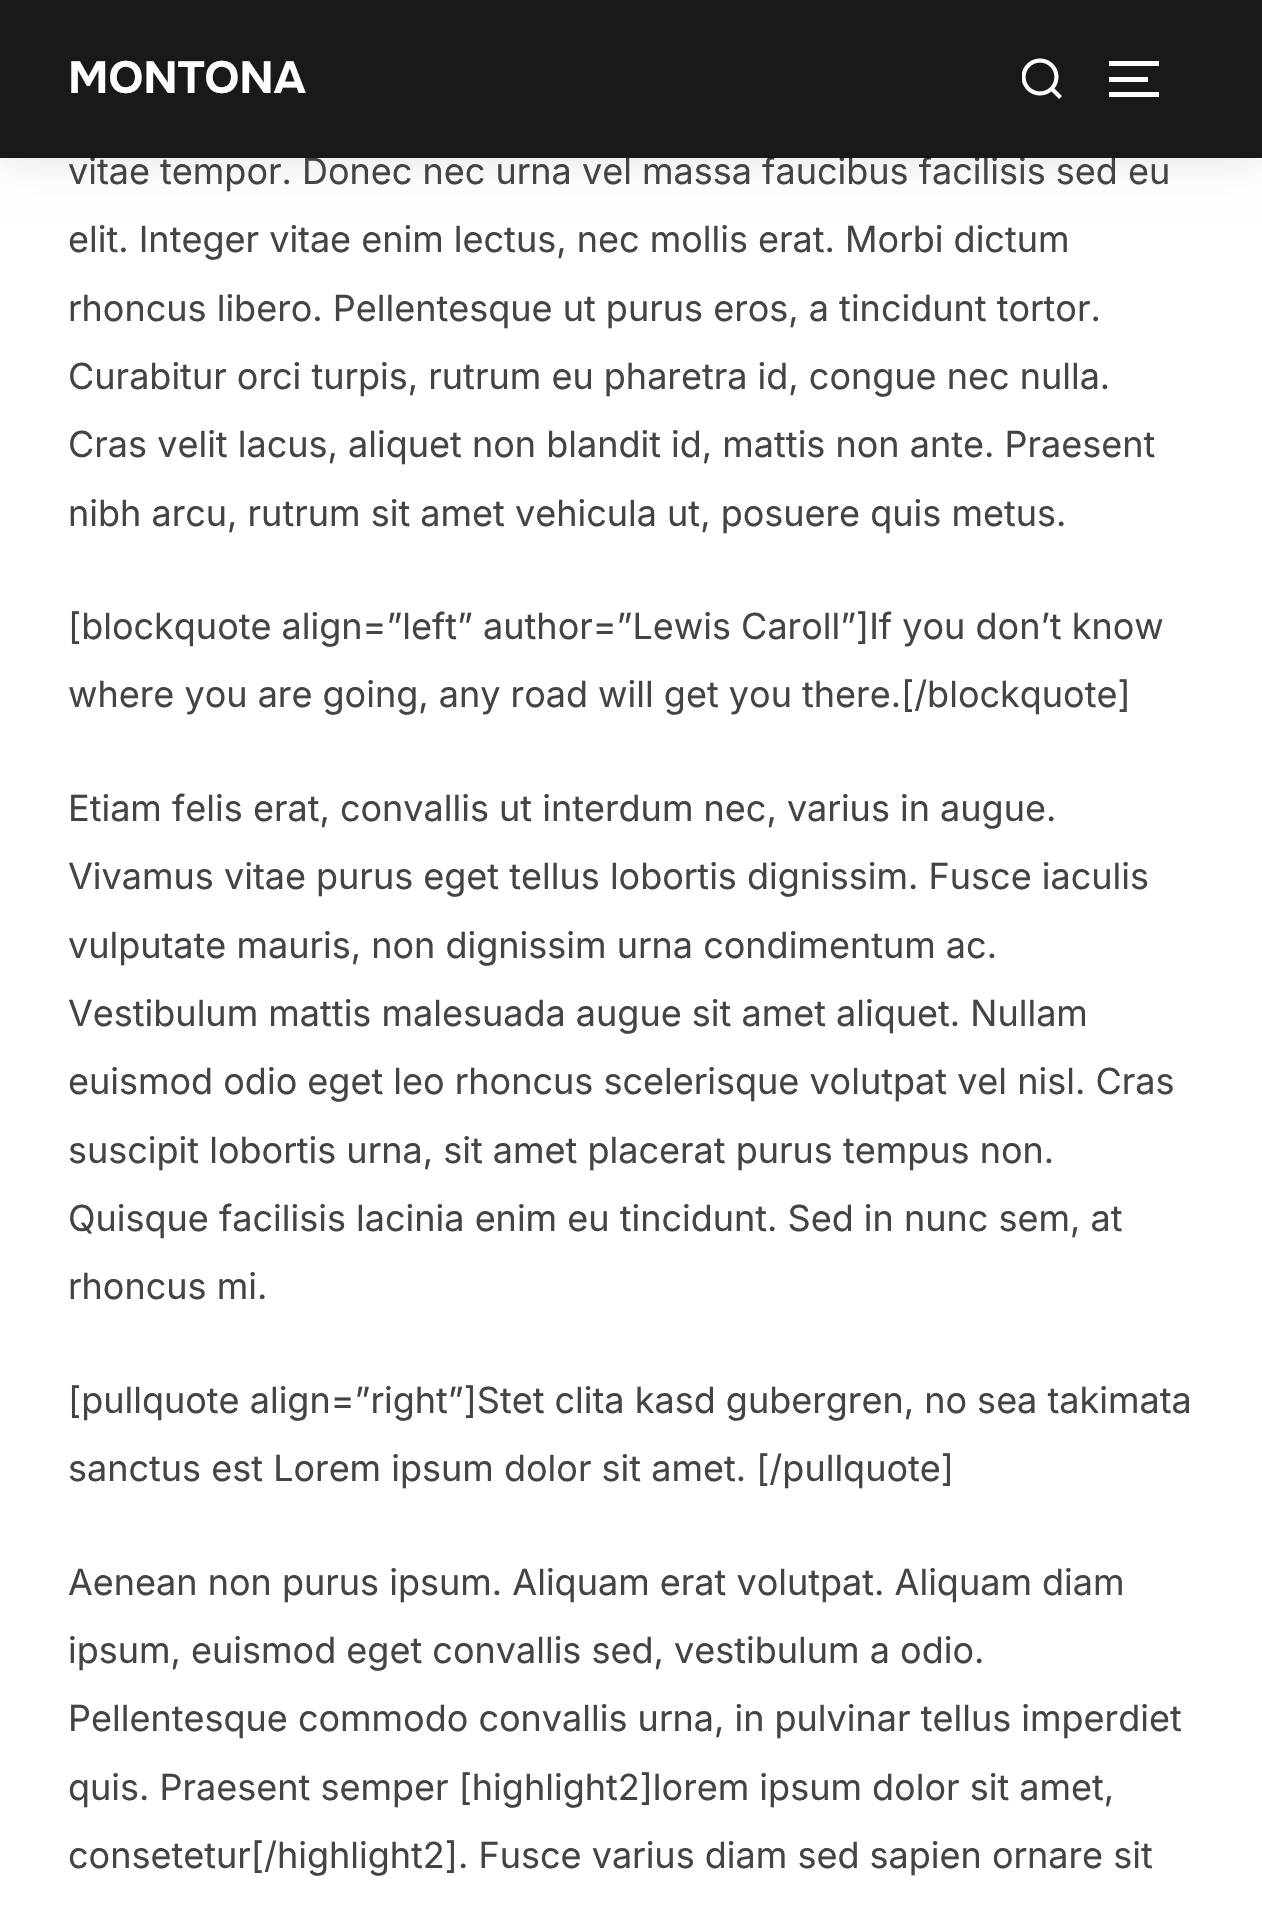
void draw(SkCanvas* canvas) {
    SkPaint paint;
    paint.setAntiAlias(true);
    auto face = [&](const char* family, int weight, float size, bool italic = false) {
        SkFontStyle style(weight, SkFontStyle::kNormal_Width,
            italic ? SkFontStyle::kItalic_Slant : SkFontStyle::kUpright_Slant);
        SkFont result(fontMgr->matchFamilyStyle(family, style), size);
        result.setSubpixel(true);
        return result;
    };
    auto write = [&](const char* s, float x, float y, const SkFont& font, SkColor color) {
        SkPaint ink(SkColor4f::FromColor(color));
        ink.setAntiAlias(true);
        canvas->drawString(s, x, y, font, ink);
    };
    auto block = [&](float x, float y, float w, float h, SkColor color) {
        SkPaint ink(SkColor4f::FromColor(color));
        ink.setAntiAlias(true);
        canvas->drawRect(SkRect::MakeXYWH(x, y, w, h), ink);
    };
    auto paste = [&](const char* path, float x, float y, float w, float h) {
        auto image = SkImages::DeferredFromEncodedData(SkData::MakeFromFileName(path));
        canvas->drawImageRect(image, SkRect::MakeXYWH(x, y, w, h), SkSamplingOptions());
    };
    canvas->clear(SK_ColorWHITE);
    canvas->save();
    canvas->clipPath(SkPathBuilder(SkPathFillType::kEvenOdd).moveTo(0, 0).lineTo(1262, 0).lineTo(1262, 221).lineTo(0, 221).close().moveTo(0, 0).lineTo(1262, 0).lineTo(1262, 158).lineTo(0, 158).close().detach(), true);
    paint.setColor(SkColorSetARGB(26, 0, 0, 0));
    paint.setMaskFilter(SkMaskFilter::MakeBlur(kNormal_SkBlurStyle, 20));
    canvas->drawRect(SkRect::MakeXYWH(-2, -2, 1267, 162), paint);
    paint.setMaskFilter(nullptr);
    canvas->restore();
    auto kFont1 = face("Inter", 400, 36);
    write("vitae tempor. Donec nec urna vel massa faucibus facilisis sed eu", 68, 184, kFont1, SkColorSetRGB(68, 68, 68));
    block(0, 0, 1262, 158, SkColorSetARGB(230, 0, 0, 0));
    auto kFont2 = face("Onest", 700, 45);
    write("MONTONA", 68, 93, kFont2, SK_ColorWHITE);
    paste("pic1.png", 1022, 58, 40, 41);
    block(1109, 61, 50, 5, SK_ColorWHITE);
    block(1109, 77, 39, 5, SK_ColorWHITE);
    block(1109, 92, 50, 5, SK_ColorWHITE);
    write("elit. Integer vitae enim lectus, nec mollis erat. Morbi dictum", 68, 252, kFont1, SkColorSetRGB(68, 68, 68));
    write("rhoncus libero. Pellentesque ut purus eros, a tincidunt tortor.", 68, 321, kFont1, SkColorSetRGB(68, 68, 68));
    write("Curabitur orci turpis, rutrum eu pharetra id, congue nec nulla.", 68, 389, kFont1, SkColorSetRGB(68, 68, 68));
    write("Cras velit lacus, aliquet non blandit id, mattis non ante. Praesent", 68, 457, kFont1, SkColorSetRGB(68, 68, 68));
    write("nibh arcu, rutrum sit amet vehicula ut, posuere quis metus.", 68, 526, kFont1, SkColorSetRGB(68, 68, 68));
    write("[blockquote align=”left” author=”Lewis Caroll”]If you don’t know", 68, 639, kFont1, SkColorSetRGB(68, 68, 68));
    write("where you are going, any road will get you there.[/blockquote]", 68, 707, kFont1, SkColorSetRGB(68, 68, 68));
    write("Etiam felis erat, convallis ut interdum nec, varius in augue.", 68, 821, kFont1, SkColorSetRGB(68, 68, 68));
    write("Vivamus vitae purus eget tellus lobortis dignissim. Fusce iaculis", 68, 889, kFont1, SkColorSetRGB(68, 68, 68));
    write("vulputate mauris, non dignissim urna condimentum ac.", 68, 958, kFont1, SkColorSetRGB(68, 68, 68));
    write("Vestibulum mattis malesuada augue sit amet aliquet. Nullam", 68, 1026, kFont1, SkColorSetRGB(68, 68, 68));
    write("euismod odio eget leo rhoncus scelerisque volutpat vel nisl. Cras", 68, 1094, kFont1, SkColorSetRGB(68, 68, 68));
    write("suscipit lobortis urna, sit amet placerat purus tempus non.", 68, 1163, kFont1, SkColorSetRGB(68, 68, 68));
    write("Quisque facilisis lacinia enim eu tincidunt. Sed in nunc sem, at", 68, 1231, kFont1, SkColorSetRGB(68, 68, 68));
    write("rhoncus mi.", 68, 1299, kFont1, SkColorSetRGB(68, 68, 68));
    write("[pullquote align=”right”]Stet clita kasd gubergren, no sea takimata", 68, 1413, kFont1, SkColorSetRGB(68, 68, 68));
    write("sanctus est Lorem ipsum dolor sit amet. [/pullquote]", 68, 1481, kFont1, SkColorSetRGB(68, 68, 68));
    write("Aenean non purus ipsum. Aliquam erat volutpat. Aliquam diam", 68, 1595, kFont1, SkColorSetRGB(68, 68, 68));
    write("ipsum, euismod eget convallis sed, vestibulum a odio.", 68, 1663, kFont1, SkColorSetRGB(68, 68, 68));
    write("Pellentesque commodo convallis urna, in pulvinar tellus imperdiet", 68, 1731, kFont1, SkColorSetRGB(68, 68, 68));
    write("quis. Praesent semper [highlight2]lorem ipsum dolor sit amet,", 68, 1800, kFont1, SkColorSetRGB(68, 68, 68));
    write("consetetur[/highlight2]. Fusce varius diam sed sapien ornare sit", 68, 1868, kFont1, SkColorSetRGB(68, 68, 68));
}
